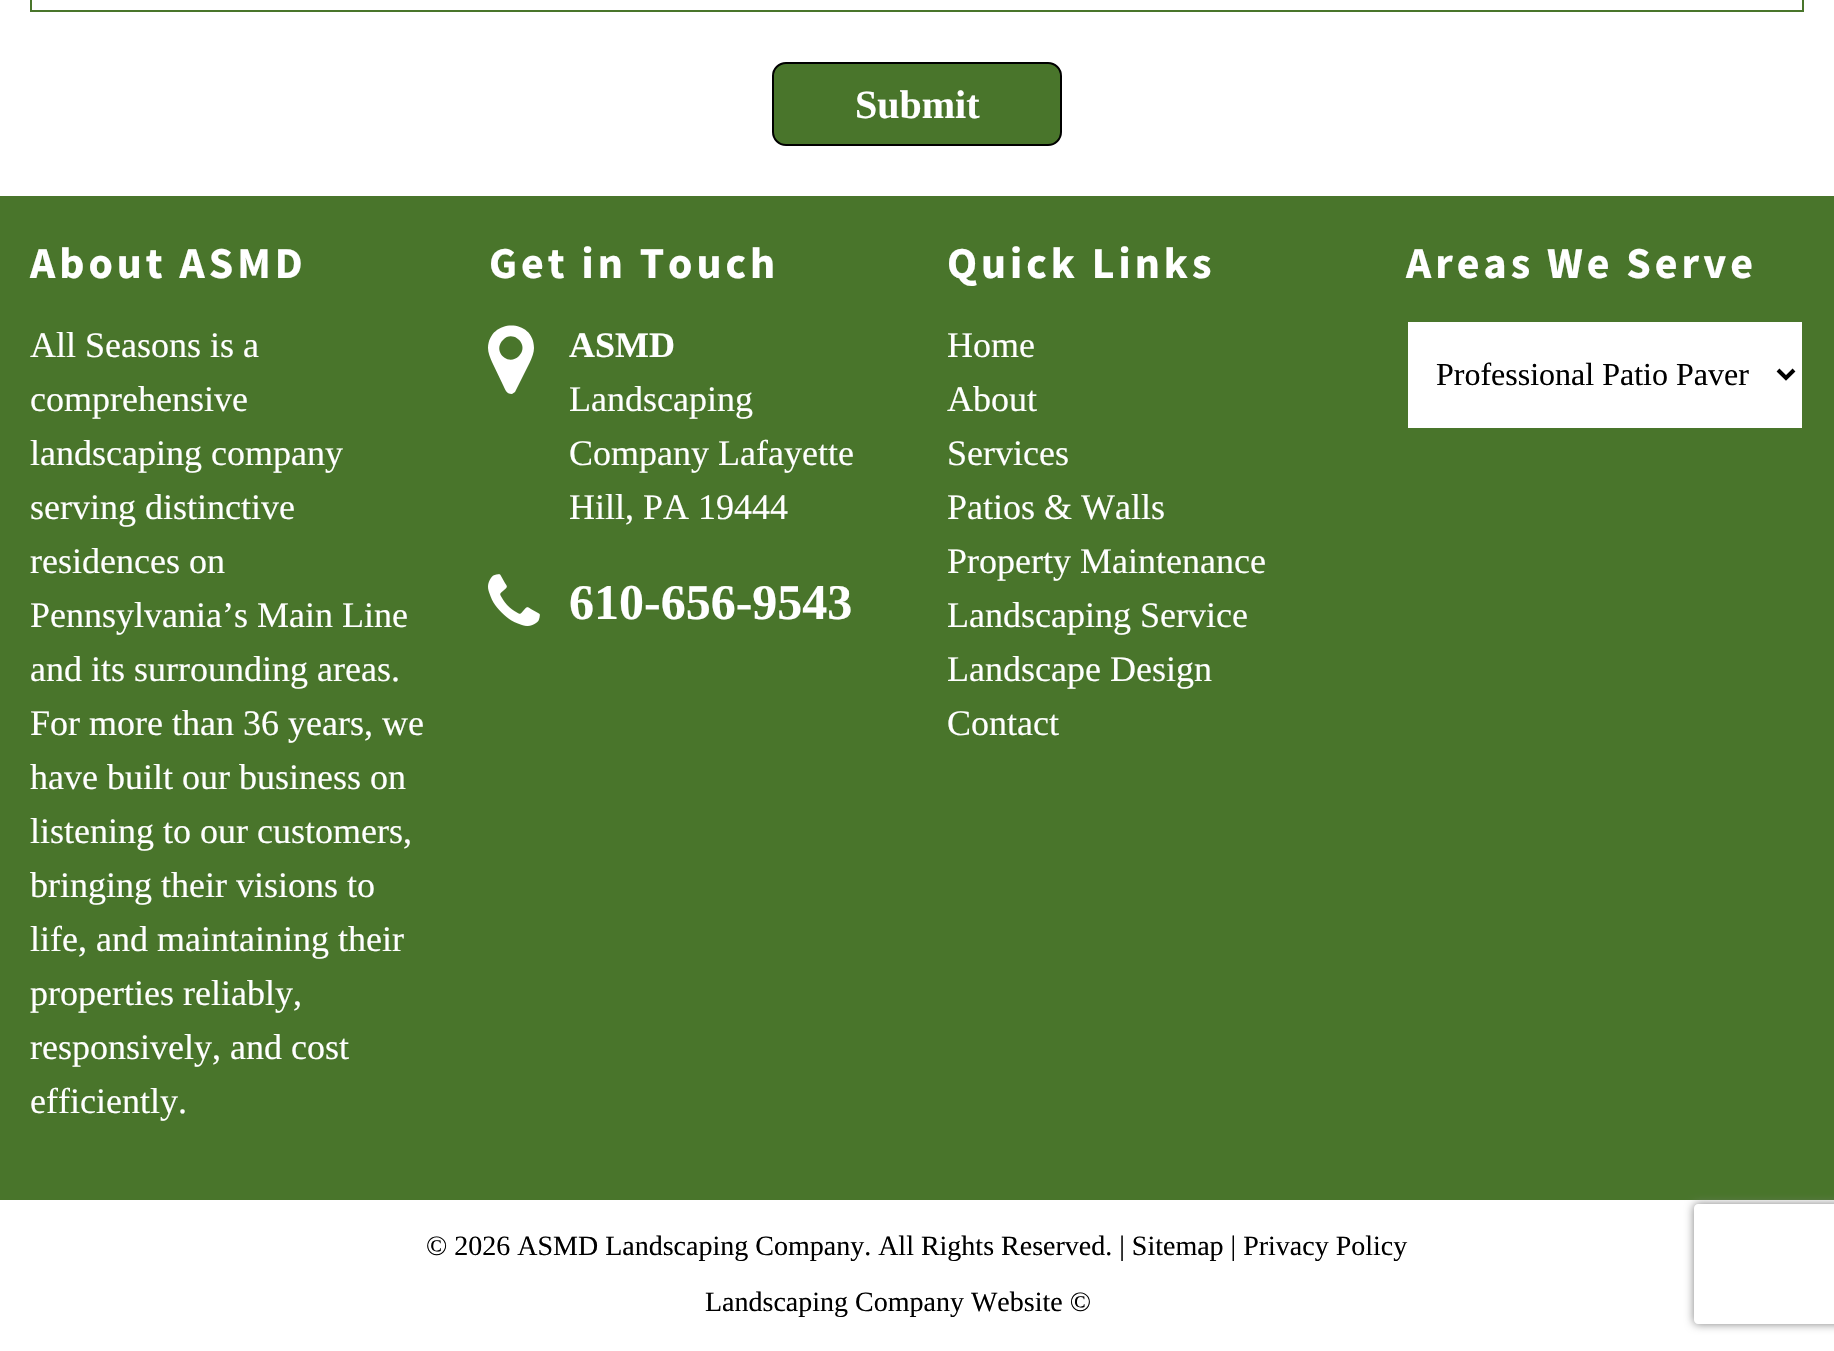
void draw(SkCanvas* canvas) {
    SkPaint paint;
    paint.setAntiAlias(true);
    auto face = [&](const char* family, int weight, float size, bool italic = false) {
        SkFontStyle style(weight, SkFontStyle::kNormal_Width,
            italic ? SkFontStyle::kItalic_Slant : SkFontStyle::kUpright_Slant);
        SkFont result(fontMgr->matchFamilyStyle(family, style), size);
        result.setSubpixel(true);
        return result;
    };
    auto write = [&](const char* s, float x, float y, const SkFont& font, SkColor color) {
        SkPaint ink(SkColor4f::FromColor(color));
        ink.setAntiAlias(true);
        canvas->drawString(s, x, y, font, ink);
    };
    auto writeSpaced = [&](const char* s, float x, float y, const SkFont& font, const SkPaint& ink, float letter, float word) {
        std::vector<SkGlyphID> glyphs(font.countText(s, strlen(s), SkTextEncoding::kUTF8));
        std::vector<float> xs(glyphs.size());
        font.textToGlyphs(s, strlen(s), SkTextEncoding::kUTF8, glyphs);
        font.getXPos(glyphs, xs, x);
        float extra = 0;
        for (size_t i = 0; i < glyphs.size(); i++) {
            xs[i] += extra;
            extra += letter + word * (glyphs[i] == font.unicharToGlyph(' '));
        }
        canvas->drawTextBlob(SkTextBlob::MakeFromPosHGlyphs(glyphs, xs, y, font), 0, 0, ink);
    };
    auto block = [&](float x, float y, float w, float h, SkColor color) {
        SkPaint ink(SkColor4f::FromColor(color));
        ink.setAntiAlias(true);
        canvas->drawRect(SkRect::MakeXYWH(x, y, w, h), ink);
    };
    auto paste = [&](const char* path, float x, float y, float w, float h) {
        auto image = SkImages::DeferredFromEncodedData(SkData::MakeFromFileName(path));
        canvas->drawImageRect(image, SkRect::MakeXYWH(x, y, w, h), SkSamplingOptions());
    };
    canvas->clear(SK_ColorWHITE);
    paint.setStyle(SkPaint::kStroke_Style);
    paint.setStrokeWidth(2);
    paint.setColor(SkColorSetRGB(73, 117, 43));
    canvas->drawRect(SkRect::MakeXYWH(31, -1, 1772, 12), paint);
    paint.setStyle(SkPaint::kFill_Style);
    canvas->drawRoundRect(SkRect::MakeXYWH(773, 63, 288, 82), 13, 13, paint);
    paint.setStyle(SkPaint::kStroke_Style);
    paint.setColor(SK_ColorBLACK);
    canvas->drawRoundRect(SkRect::MakeXYWH(773, 63, 288, 82), 13, 13, paint);
    auto kFont1 = face("Liberation Serif", 700, 40);
    write("Submit", 855, 118, kFont1, SK_ColorWHITE);
    block(0, 196, 1834, 1004, SkColorSetRGB(73, 117, 43));
    auto kFont2 = face("Source Sans Pro", 700, 44);
    paint.setStyle(SkPaint::kFill_Style);
    paint.setColor(SK_ColorWHITE);
    writeSpaced("About ASMD", 30, 278, kFont2, paint, 4, 0);
    auto kFont3 = face("Liberation Serif", 400, 36);
    write("All Seasons is a", 30, 357, kFont3, SK_ColorWHITE);
    write("comprehensive", 30, 411, kFont3, SK_ColorWHITE);
    write("landscaping company", 30, 465, kFont3, SK_ColorWHITE);
    write("serving distinctive", 30, 519, kFont3, SK_ColorWHITE);
    write("residences on", 30, 573, kFont3, SK_ColorWHITE);
    write("Pennsylvania’s Main Line", 30, 627, kFont3, SK_ColorWHITE);
    write("and its surrounding areas.", 30, 681, kFont3, SK_ColorWHITE);
    write("For more than 36 years, we", 30, 735, kFont3, SK_ColorWHITE);
    write("have built our business on", 30, 789, kFont3, SK_ColorWHITE);
    write("listening to our customers,", 30, 843, kFont3, SK_ColorWHITE);
    write("bringing their visions to", 30, 897, kFont3, SK_ColorWHITE);
    write("life, and maintaining their", 30, 951, kFont3, SK_ColorWHITE);
    write("properties reliably,", 30, 1005, kFont3, SK_ColorWHITE);
    write("responsively, and cost", 30, 1059, kFont3, SK_ColorWHITE);
    write("efficiently.", 30, 1113, kFont3, SK_ColorWHITE);
    writeSpaced("Get in Touch", 489, 278, kFont2, paint, 4, 0);
    canvas->drawPath(SkPathBuilder().moveTo(519, 356).cubicTo(530, 345, 513, 329, 503, 340).cubicTo(492, 351, 508, 367, 519, 356).close().moveTo(534, 348).cubicTo(534, 353, 532, 357, 530, 362).lineTo(515, 392).cubicTo(514, 393, 513, 393, 512, 394).cubicTo(506, 394, 505, 389, 503, 385).lineTo(492, 362).cubicTo(490, 357, 488, 353, 488, 348).cubicTo(489, 318, 534, 318, 534, 348).close().detach(), paint);
    auto kFont4 = face("Liberation Serif", 700, 36);
    write("ASMD", 569, 357, kFont4, SK_ColorWHITE);
    write("Landscaping", 569, 411, kFont3, SK_ColorWHITE);
    write("Company Lafayette", 569, 465, kFont3, SK_ColorWHITE);
    write("Hill, PA 19444", 569, 519, kFont3, SK_ColorWHITE);
    paste("pic1.png", 488, 574, 52, 52);
    auto kFont5 = face("Liberation Serif", 700, 50);
    write("610-656-9543", 569, 619, kFont5, SK_ColorWHITE);
    writeSpaced("Quick Links", 947, 278, kFont2, paint, 4, 0);
    write("Home", 947, 357, kFont3, SK_ColorWHITE);
    write("About", 947, 411, kFont3, SK_ColorWHITE);
    write("Services", 947, 465, kFont3, SK_ColorWHITE);
    write("Patios & Walls", 947, 519, kFont3, SK_ColorWHITE);
    write("Property Maintenance", 947, 573, kFont3, SK_ColorWHITE);
    write("Landscaping Service", 947, 627, kFont3, SK_ColorWHITE);
    write("Landscape Design", 947, 681, kFont3, SK_ColorWHITE);
    write("Contact", 947, 735, kFont3, SK_ColorWHITE);
    writeSpaced("Areas We Serve", 1406, 278, kFont2, paint, 4, 0);
    block(1408, 322, 394, 106, SK_ColorWHITE);
    paint.setStyle(SkPaint::kStroke_Style);
    paint.setStrokeWidth(4);
    paint.setColor(SK_ColorBLACK);
    canvas->drawPath(SkPathBuilder().moveTo(1778, 370).lineTo(1786, 378).lineTo(1794, 370).detach(), paint);
    auto kFont6 = face("Liberation Serif", 400, 32);
    write("Professional Patio Paver", 1436, 385, kFont6, SK_ColorBLACK);
    auto kFont7 = face("Liberation Serif", 400, 28);
    write("© 2026 ASMD Landscaping Company. All Rights Reserved. | Sitemap | Privacy Policy", 426, 1255, kFont7, SK_ColorBLACK);
    write("Landscaping Company Website ©", 705, 1311, kFont7, SK_ColorBLACK);
    canvas->save();
    canvas->clipPath(SkPathBuilder(SkPathFillType::kEvenOdd).moveTo(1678, 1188).lineTo(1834, 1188).lineTo(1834, 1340).lineTo(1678, 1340).close().moveTo(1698, 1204).lineTo(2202, 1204).cubicTo(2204, 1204, 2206, 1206, 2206, 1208).lineTo(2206, 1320).cubicTo(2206, 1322, 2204, 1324, 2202, 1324).lineTo(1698, 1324).cubicTo(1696, 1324, 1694, 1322, 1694, 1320).lineTo(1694, 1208).cubicTo(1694, 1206, 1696, 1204, 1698, 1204).close().detach(), true);
    paint.setStyle(SkPaint::kFill_Style);
    paint.setColor(SkColorSetRGB(128, 128, 128));
    paint.setMaskFilter(SkMaskFilter::MakeBlur(kNormal_SkBlurStyle, 5));
    canvas->drawRoundRect(SkRect::MakeXYWH(1694, 1204, 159, 120), 4, 4, paint);
    paint.setMaskFilter(nullptr);
    canvas->restore();
}
